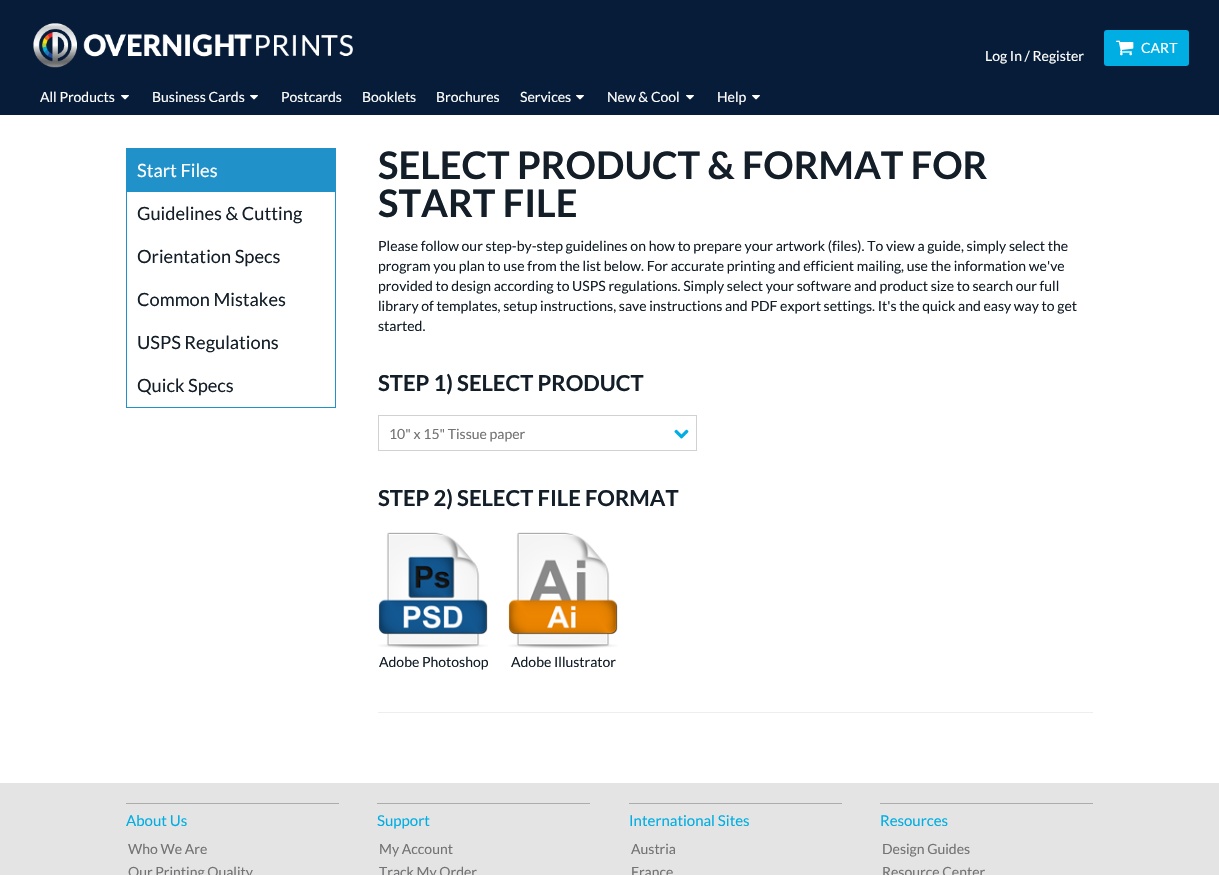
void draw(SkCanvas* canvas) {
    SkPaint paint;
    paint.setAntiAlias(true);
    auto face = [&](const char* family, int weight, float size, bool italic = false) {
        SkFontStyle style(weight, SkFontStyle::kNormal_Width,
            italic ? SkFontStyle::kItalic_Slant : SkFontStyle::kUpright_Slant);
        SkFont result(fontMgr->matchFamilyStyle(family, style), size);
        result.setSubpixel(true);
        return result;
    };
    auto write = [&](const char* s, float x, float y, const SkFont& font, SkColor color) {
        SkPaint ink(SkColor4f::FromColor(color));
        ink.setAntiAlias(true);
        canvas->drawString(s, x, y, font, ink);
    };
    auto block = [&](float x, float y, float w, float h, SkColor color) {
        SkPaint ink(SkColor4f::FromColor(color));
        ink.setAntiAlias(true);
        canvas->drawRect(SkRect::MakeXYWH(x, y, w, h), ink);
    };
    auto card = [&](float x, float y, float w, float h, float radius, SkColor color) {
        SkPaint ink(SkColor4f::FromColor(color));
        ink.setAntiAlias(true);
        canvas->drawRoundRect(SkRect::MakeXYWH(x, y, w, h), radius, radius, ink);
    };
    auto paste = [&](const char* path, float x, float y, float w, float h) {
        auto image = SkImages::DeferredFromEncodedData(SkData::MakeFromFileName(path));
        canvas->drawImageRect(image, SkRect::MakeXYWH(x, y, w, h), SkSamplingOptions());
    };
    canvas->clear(SK_ColorWHITE);
    block(0, 0, 1219, 115, SkColorSetRGB(6, 28, 56));
    card(1104, 30, 85, 36, 3, SkColorSetRGB(1, 174, 227));
    paste("pic1.png", 1116, 40, 18, 16);
    auto kFont1 = face("Lato", 400, 14);
    write("CART", 1141, 53, kFont1, SK_ColorWHITE);
    write("Log In / Register", 985, 61, kFont1, SK_ColorWHITE);
    paste("pic2.png", 33, 23, 320, 45);
    write("All Products", 40, 102, kFont1, SK_ColorWHITE);
    paste("pic3.png", 121, 95, 8, 5);
    write("Business Cards", 152, 102, kFont1, SK_ColorWHITE);
    paste("pic3.png", 250, 95, 8, 5);
    write("Postcards", 281, 102, kFont1, SK_ColorWHITE);
    write("Booklets", 362, 102, kFont1, SK_ColorWHITE);
    write("Brochures", 436, 102, kFont1, SK_ColorWHITE);
    write("Services", 520, 102, kFont1, SK_ColorWHITE);
    paste("pic3.png", 576, 95, 8, 5);
    write("New & Cool", 607, 102, kFont1, SK_ColorWHITE);
    paste("pic3.png", 686, 95, 8, 5);
    write("Help", 717, 102, kFont1, SK_ColorWHITE);
    paste("pic3.png", 752, 95, 8, 5);
    paint.setStyle(SkPaint::kStroke_Style);
    paint.setStrokeWidth(1);
    paint.setColor(SkColorSetRGB(32, 146, 201));
    canvas->drawRect(SkRect::MakeXYWH(126.5f, 148.5f, 209, 259), paint);
    block(127, 149, 208, 43, SkColorSetRGB(32, 146, 201));
    auto kFont2 = face("Lato", 400, 18.25f);
    write("Start Files", 137, 177, kFont2, SK_ColorWHITE);
    write("Guidelines & Cutting", 137, 220, kFont2, SkColorSetRGB(19, 30, 40));
    write("Orientation Specs", 137, 263, kFont2, SkColorSetRGB(19, 30, 40));
    write("Common Mistakes", 137, 306, kFont2, SkColorSetRGB(19, 30, 40));
    write("USPS Regulations", 137, 349, kFont2, SkColorSetRGB(19, 30, 40));
    write("Quick Specs", 137, 392, kFont2, SkColorSetRGB(19, 30, 40));
    auto kFont3 = face("Lato", 700, 38);
    write("SELECT PRODUCT & FORMAT FOR", 378, 179, kFont3, SkColorSetRGB(19, 30, 40));
    write("START FILE", 378, 217, kFont3, SkColorSetRGB(19, 30, 40));
    write("Please follow our step-by-step guidelines on how to prepare your artwork (files). To view a guide, simply select the", 378, 251, kFont1, SkColorSetRGB(19, 30, 40));
    write("program you plan to use from the list below. For accurate printing and efficient mailing, use the information we've", 378, 271, kFont1, SkColorSetRGB(19, 30, 40));
    write("provided to design according to USPS regulations. Simply select your software and product size to search our full", 378, 291, kFont1, SkColorSetRGB(19, 30, 40));
    write("library of templates, setup instructions, save instructions and PDF export settings. It's the quick and easy way to get", 378, 311, kFont1, SkColorSetRGB(19, 30, 40));
    write("started.", 378, 331, kFont1, SkColorSetRGB(19, 30, 40));
    auto kFont4 = face("Lato", 700, 22);
    write("STEP 1) SELECT PRODUCT", 378, 391, kFont4, SkColorSetRGB(19, 30, 40));
    paint.setColor(SkColorSetRGB(209, 209, 210));
    canvas->drawRect(SkRect::MakeXYWH(378.5f, 415.5f, 318, 35), paint);
    write("10\" x 15\" Tissue paper", 389, 439, kFont1, SkColorSetRGB(115, 115, 117));
    paste("pic4.png", 674, 429, 15, 10);
    write("STEP 2) SELECT FILE FORMAT", 378, 506, kFont4, SkColorSetRGB(19, 30, 40));
    paste("pic5.png", 378, 532, 110, 117);
    write("Adobe Photoshop", 379, 667, kFont1, SkColorSetRGB(19, 30, 40));
    paste("pic6.png", 508, 532, 110, 117);
    write("Adobe Illustrator", 511, 667, kFont1, SkColorSetRGB(19, 30, 40));
    block(378, 712, 715, 1, SkColorSetRGB(238, 238, 238));
    block(0, 783, 1219, 92, SkColorSetRGB(228, 228, 228));
    block(126, 803, 213, 1, SkColorSetRGB(172, 172, 172));
    auto kFont5 = face("Lato", 400, 15);
    write("About Us", 126, 826, kFont5, SkColorSetRGB(1, 174, 227));
    write("Who We Are", 128, 854, kFont1, SkColorSetRGB(115, 115, 117));
    write("Our Printing Quality", 128, 877, kFont1, SkColorSetRGB(115, 115, 117));
    block(377, 803, 213, 1, SkColorSetRGB(172, 172, 172));
    write("Support", 377, 826, kFont5, SkColorSetRGB(1, 174, 227));
    write("My Account", 379, 854, kFont1, SkColorSetRGB(115, 115, 117));
    write("Track My Order", 379, 877, kFont1, SkColorSetRGB(115, 115, 117));
    block(629, 803, 213, 1, SkColorSetRGB(172, 172, 172));
    write("International Sites", 629, 826, kFont5, SkColorSetRGB(1, 174, 227));
    write("Austria", 631, 854, kFont1, SkColorSetRGB(115, 115, 117));
    write("France", 631, 877, kFont1, SkColorSetRGB(115, 115, 117));
    block(880, 803, 213, 1, SkColorSetRGB(172, 172, 172));
    write("Resources", 880, 826, kFont5, SkColorSetRGB(1, 174, 227));
    write("Design Guides", 882, 854, kFont1, SkColorSetRGB(115, 115, 117));
    write("Resource Center", 882, 877, kFont1, SkColorSetRGB(115, 115, 117));
}
